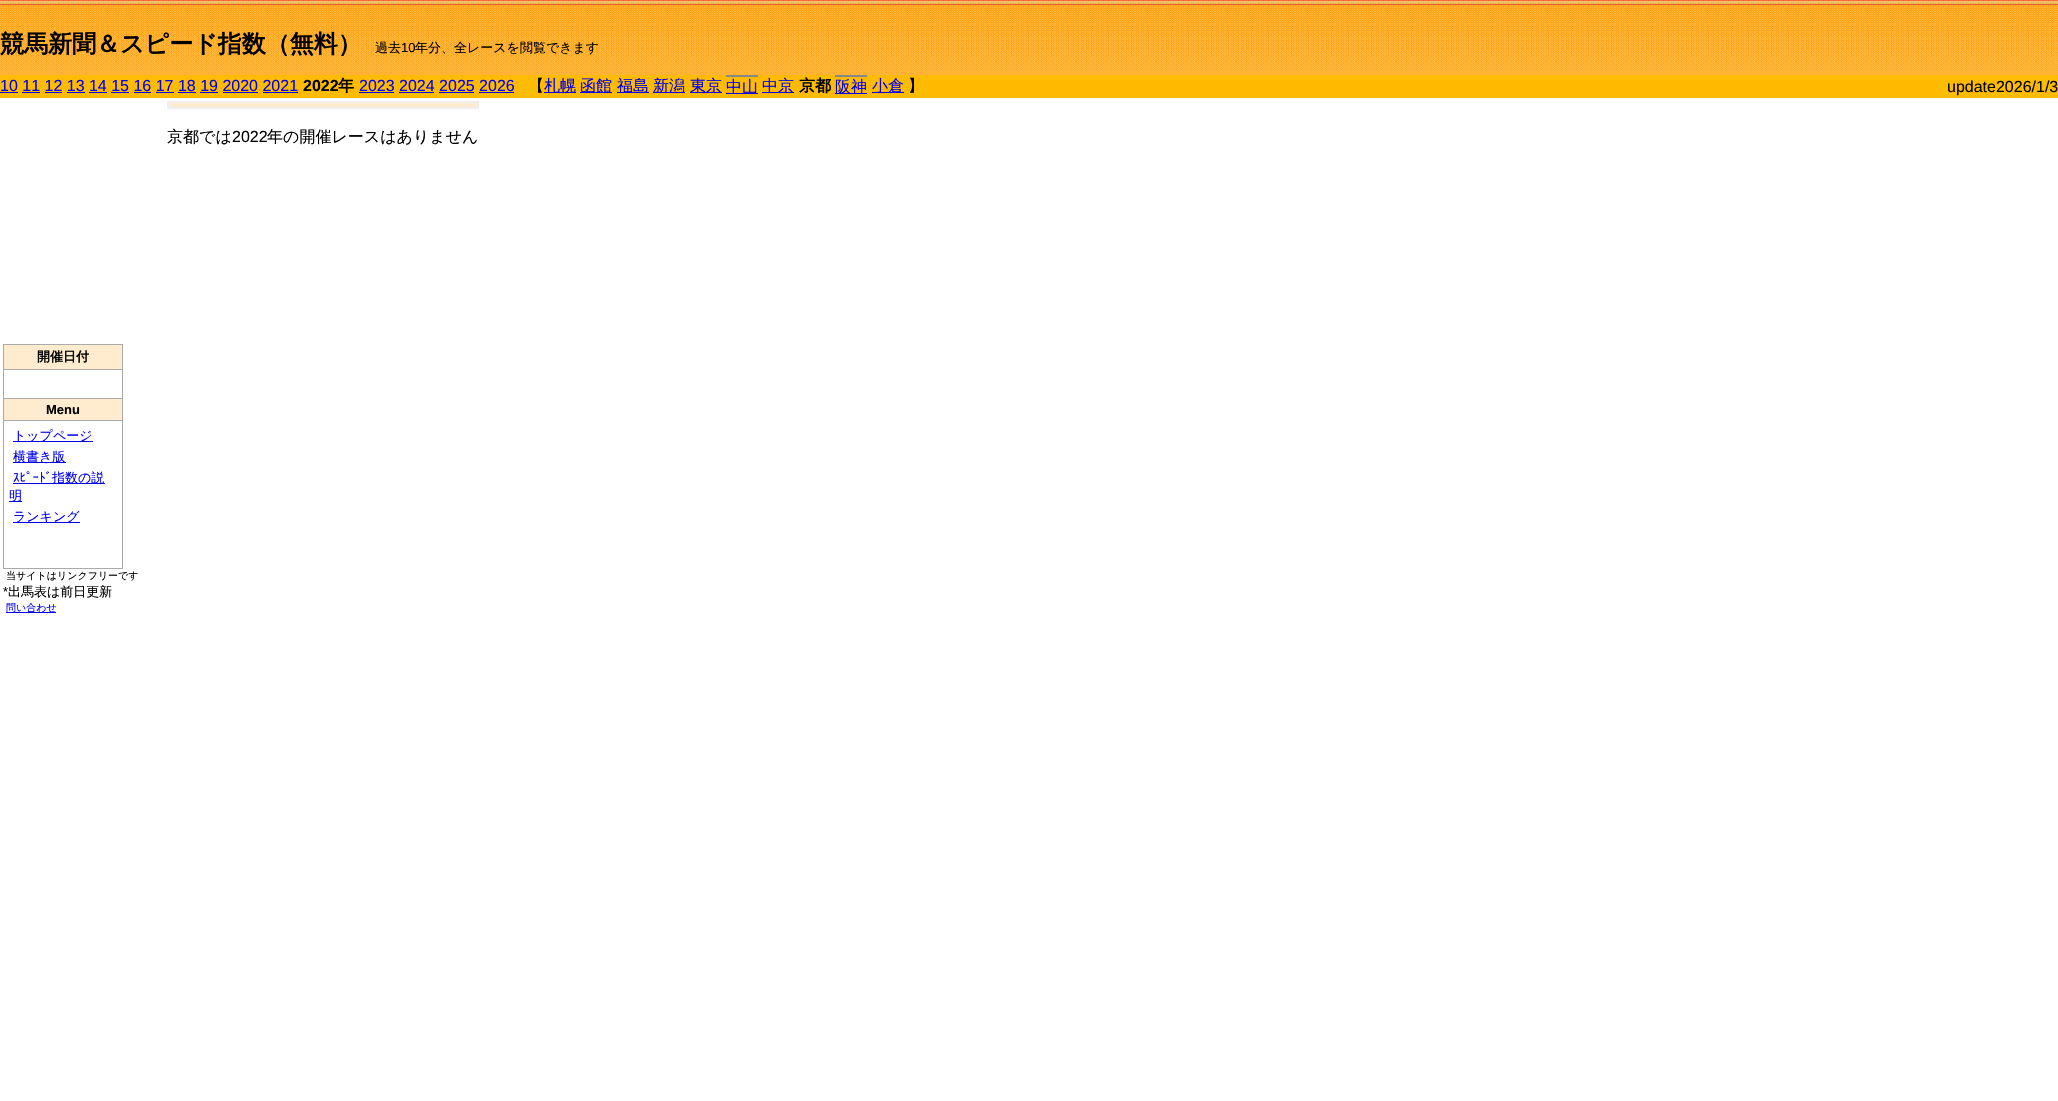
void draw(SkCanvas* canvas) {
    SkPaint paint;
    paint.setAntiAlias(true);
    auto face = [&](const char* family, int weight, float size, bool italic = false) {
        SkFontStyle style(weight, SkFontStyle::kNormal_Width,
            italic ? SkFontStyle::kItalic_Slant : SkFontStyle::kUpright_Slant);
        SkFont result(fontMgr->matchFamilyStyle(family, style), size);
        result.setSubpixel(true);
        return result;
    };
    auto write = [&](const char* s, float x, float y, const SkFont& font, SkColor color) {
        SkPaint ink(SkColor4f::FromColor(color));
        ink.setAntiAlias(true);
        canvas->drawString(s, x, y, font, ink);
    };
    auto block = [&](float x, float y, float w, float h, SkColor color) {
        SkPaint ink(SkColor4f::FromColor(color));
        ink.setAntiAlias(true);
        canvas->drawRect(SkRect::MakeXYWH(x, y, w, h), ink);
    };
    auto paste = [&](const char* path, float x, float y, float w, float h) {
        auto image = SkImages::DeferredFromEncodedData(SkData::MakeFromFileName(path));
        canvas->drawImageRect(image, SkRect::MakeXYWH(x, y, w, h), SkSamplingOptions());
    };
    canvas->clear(SK_ColorWHITE);
    paste("pic1.png", 0, 0, 2058, 75);
    auto kFont1 = face("WenQuanYi Zen Hei", 700, 24);
    write("競馬新聞＆スピード指数（無料）", 0, 52, kFont1, SK_ColorBLACK);
    auto kFont2 = face("WenQuanYi Zen Hei", 500, 13);
    write("過去", 375, 52, kFont2, SK_ColorBLACK);
    auto kFont3 = face("Liberation Sans", 400, 13);
    write("10", 401, 52, kFont3, SK_ColorBLACK);
    write("年分、全レースを閲覧できます", 415, 52, kFont2, SK_ColorBLACK);
    block(0, 75, 2058, 23, SkColorSetRGB(255, 187, 0));
    auto kFont4 = face("Liberation Sans", 400, 16);
    write("10 11 12 13 14 15 16 17 18 19 2020 2021", 0, 91, kFont4, SkColorSetRGB(0, 0, 238));
    block(0, 92, 18, 1, SkColorSetRGB(0, 0, 238));
    auto kFont5 = face("Liberation Sans", 700, 16);
    write("2022", 303, 91, kFont5, SK_ColorBLACK);
    auto kFont6 = face("WenQuanYi Zen Hei", 700, 16);
    write("年", 338, 91, kFont6, SK_ColorBLACK);
    write("2023 2024 2025 2026", 359, 91, kFont4, SkColorSetRGB(0, 0, 238));
    block(359, 92, 35, 1, SkColorSetRGB(0, 0, 238));
    block(22, 92, 18, 1, SkColorSetRGB(0, 0, 238));
    block(45, 92, 17, 1, SkColorSetRGB(0, 0, 238));
    block(67, 92, 18, 1, SkColorSetRGB(0, 0, 238));
    block(89, 92, 18, 1, SkColorSetRGB(0, 0, 238));
    block(111, 92, 18, 1, SkColorSetRGB(0, 0, 238));
    block(134, 92, 17, 1, SkColorSetRGB(0, 0, 238));
    block(156, 92, 18, 1, SkColorSetRGB(0, 0, 238));
    block(178, 92, 18, 1, SkColorSetRGB(0, 0, 238));
    block(200, 92, 18, 1, SkColorSetRGB(0, 0, 238));
    block(223, 92, 35, 1, SkColorSetRGB(0, 0, 238));
    block(263, 92, 35, 1, SkColorSetRGB(0, 0, 238));
    block(399, 92, 35, 1, SkColorSetRGB(0, 0, 238));
    block(439, 92, 35, 1, SkColorSetRGB(0, 0, 238));
    block(479, 92, 35, 1, SkColorSetRGB(0, 0, 238));
    auto kFont7 = face("WenQuanYi Zen Hei", 500, 16);
    write("【", 528, 91, kFont7, SK_ColorBLACK);
    block(544, 92, 32, 1, SkColorSetRGB(0, 0, 238));
    write("札幌", 544, 91, kFont7, SkColorSetRGB(0, 0, 238));
    block(580, 92, 32, 1, SkColorSetRGB(0, 0, 238));
    write("函館", 580, 91, kFont7, SkColorSetRGB(0, 0, 238));
    block(617, 92, 32, 1, SkColorSetRGB(0, 0, 238));
    write("福島", 617, 91, kFont7, SkColorSetRGB(0, 0, 238));
    block(653, 92, 32, 1, SkColorSetRGB(0, 0, 238));
    write("新潟", 653, 91, kFont7, SkColorSetRGB(0, 0, 238));
    block(690, 92, 32, 1, SkColorSetRGB(0, 0, 238));
    write("東京", 690, 91, kFont7, SkColorSetRGB(0, 0, 238));
    block(726, 75, 32, 2, SkColorSetRGB(136, 136, 136));
    block(726, 93, 32, 1, SkColorSetRGB(0, 0, 238));
    write("中山", 726, 92, kFont7, SkColorSetRGB(0, 0, 238));
    block(762, 92, 32, 1, SkColorSetRGB(0, 0, 238));
    write("中京", 762, 91, kFont7, SkColorSetRGB(0, 0, 238));
    write("京都", 799, 91, kFont6, SK_ColorBLACK);
    block(835, 75, 32, 2, SkColorSetRGB(136, 136, 136));
    block(835, 93, 32, 1, SkColorSetRGB(0, 0, 238));
    write("阪神", 835, 92, kFont7, SkColorSetRGB(0, 0, 238));
    block(872, 92, 32, 1, SkColorSetRGB(0, 0, 238));
    write("小倉", 872, 91, kFont7, SkColorSetRGB(0, 0, 238));
    write("】", 908, 91, kFont7, SK_ColorBLACK);
    write("update2026/1/3", 1947, 92, kFont4, SK_ColorBLACK);
    paint.setStyle(SkPaint::kStroke_Style);
    paint.setStrokeWidth(1);
    paint.setColor(SkColorSetRGB(238, 238, 238));
    canvas->drawRect(SkRect::MakeXYWH(167.5f, 101.5f, 311, 7), paint);
    paint.setStyle(SkPaint::kFill_Style);
    paint.setColor(SkColorSetRGB(255, 235, 205));
    canvas->drawRect(SkRect::MakeXYWH(168.5f, 102.5f, 309, 5), paint);
    paint.setStyle(SkPaint::kStroke_Style);
    paint.setColor(SkColorSetRGB(238, 238, 238));
    canvas->drawRect(SkRect::MakeXYWH(168.5f, 102.5f, 309, 5), paint);
    write("京都では", 167, 142, kFont7, SK_ColorBLACK);
    write("2022", 232, 142, kFont4, SK_ColorBLACK);
    write("年の開催レースはありません", 267, 142, kFont7, SK_ColorBLACK);
    block(3, 344, 120, 225, SkColorSetRGB(170, 170, 170));
    block(4, 345, 118, 24, SkColorSetRGB(255, 235, 205));
    auto kFont8 = face("WenQuanYi Zen Hei", 700, 13);
    write("開催日付", 37, 361, kFont8, SK_ColorBLACK);
    block(4, 370, 118, 28, SK_ColorWHITE);
    block(4, 399, 118, 21, SkColorSetRGB(255, 235, 205));
    auto kFont9 = face("Liberation Sans", 700, 13);
    write("Menu", 46, 414, kFont9, SK_ColorBLACK);
    block(4, 421, 118, 147, SK_ColorWHITE);
    block(13, 441, 80, 1, SkColorSetRGB(0, 0, 238));
    write("トップページ", 13, 440, kFont2, SkColorSetRGB(0, 0, 238));
    block(13, 462, 53, 1, SkColorSetRGB(0, 0, 238));
    write("横書き版", 13, 461, kFont2, SkColorSetRGB(0, 0, 238));
    auto kFont10 = face("IPAPGothic", 400, 13);
    write("ｽﾋﾟｰﾄﾞ", 13, 482, kFont10, SkColorSetRGB(0, 0, 238));
    block(13, 483, 92, 1, SkColorSetRGB(0, 0, 238));
    write("指数の説", 52, 482, kFont2, SkColorSetRGB(0, 0, 238));
    block(9, 501, 13, 1, SkColorSetRGB(0, 0, 238));
    write("明", 9, 500, kFont2, SkColorSetRGB(0, 0, 238));
    block(13, 522, 67, 1, SkColorSetRGB(0, 0, 238));
    write("ランキング", 13, 521, kFont2, SkColorSetRGB(0, 0, 238));
    auto kFont11 = face("WenQuanYi Zen Hei", 500, 10);
    write("当サイトはリンクフリーです", 6, 579, kFont11, SK_ColorBLACK);
    write("*", 3, 596, kFont3, SK_ColorBLACK);
    write("出馬表は前日更新", 8, 596, kFont2, SK_ColorBLACK);
    block(6, 612, 50, 1, SkColorSetRGB(0, 0, 238));
    write("問い合わせ", 6, 611, kFont11, SkColorSetRGB(0, 0, 238));
}
